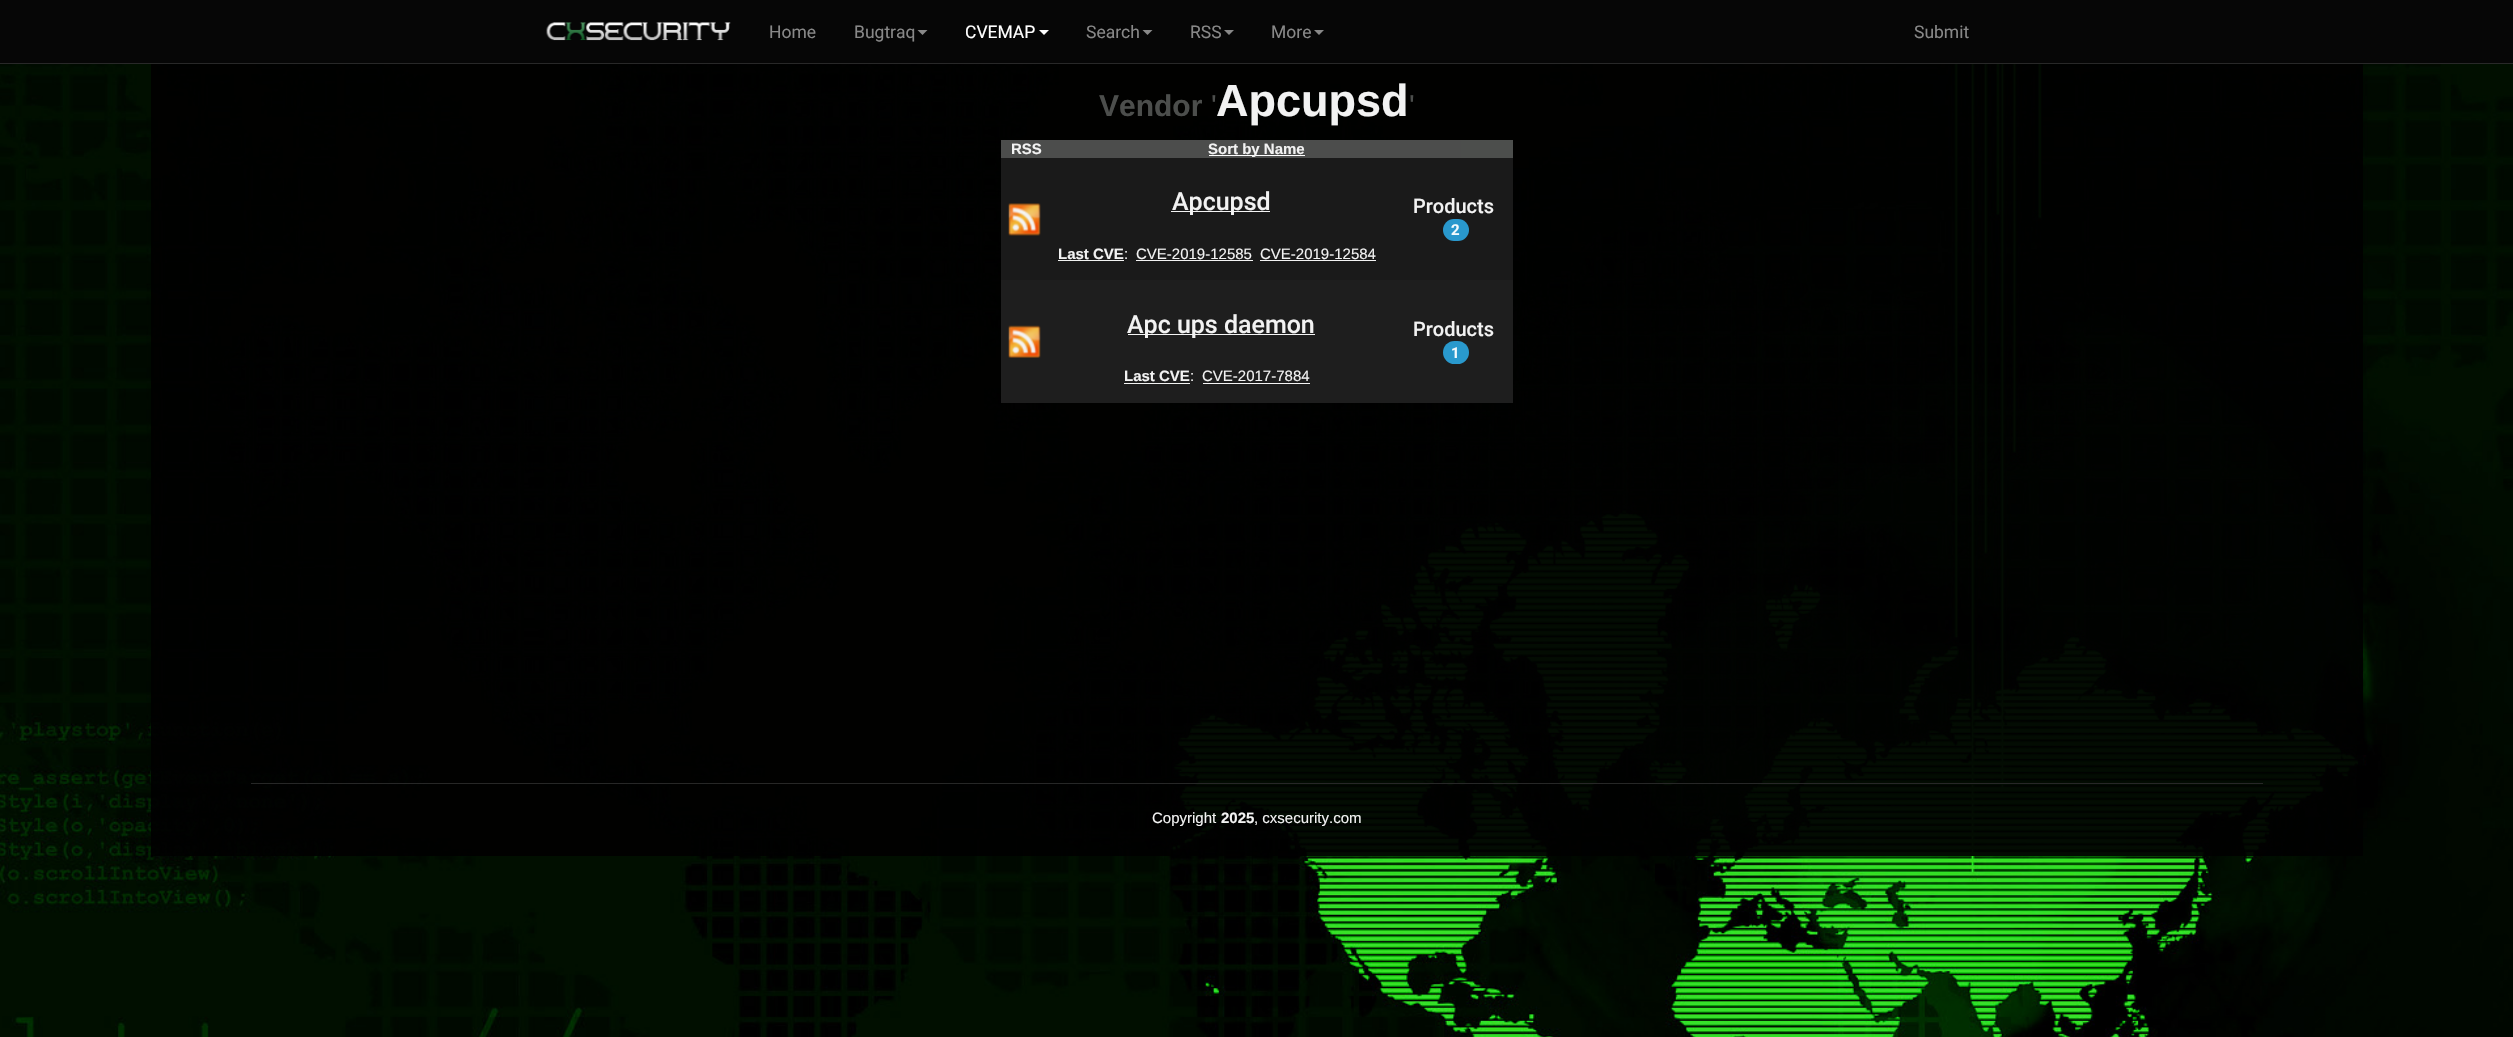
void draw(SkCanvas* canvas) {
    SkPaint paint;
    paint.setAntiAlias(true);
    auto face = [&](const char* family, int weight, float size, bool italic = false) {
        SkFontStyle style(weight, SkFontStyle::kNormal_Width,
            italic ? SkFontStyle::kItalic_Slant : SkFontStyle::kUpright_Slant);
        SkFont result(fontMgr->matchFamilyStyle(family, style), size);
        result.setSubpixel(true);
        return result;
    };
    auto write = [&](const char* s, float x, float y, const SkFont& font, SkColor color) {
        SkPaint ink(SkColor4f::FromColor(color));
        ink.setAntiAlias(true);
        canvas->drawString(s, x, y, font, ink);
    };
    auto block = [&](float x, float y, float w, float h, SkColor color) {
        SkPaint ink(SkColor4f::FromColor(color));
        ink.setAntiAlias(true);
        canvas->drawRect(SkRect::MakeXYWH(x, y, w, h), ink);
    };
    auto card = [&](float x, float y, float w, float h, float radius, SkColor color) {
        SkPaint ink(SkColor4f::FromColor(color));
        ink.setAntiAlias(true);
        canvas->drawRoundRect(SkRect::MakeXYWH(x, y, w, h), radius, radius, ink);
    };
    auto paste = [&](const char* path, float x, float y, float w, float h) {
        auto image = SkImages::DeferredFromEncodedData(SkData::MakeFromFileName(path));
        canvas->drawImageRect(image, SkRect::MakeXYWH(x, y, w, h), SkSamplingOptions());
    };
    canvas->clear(SK_ColorWHITE);
    paste("pic1.png", 0, 64, 2513, 973);
    block(0, 0, 2513, 63, SkColorSetRGB(6, 6, 6));
    block(0, 63, 2513, 1, SkColorSetRGB(40, 40, 40));
    paste("pic2.png", 546, 22, 185, 19);
    auto kFont1 = face("Roboto", 400, 17.5f);
    write("Home", 769, 38, kFont1, SkColorSetRGB(136, 136, 136));
    write("Bugtraq", 854, 38, kFont1, SkColorSetRGB(136, 136, 136));
    paint.setColor(SkColorSetRGB(136, 136, 136));
    canvas->drawPath(SkPathBuilder().moveTo(917.5f, 30).lineTo(927.5f, 30).lineTo(922.5f, 35).close().detach(), paint);
    write("CVEMAP", 965, 38, kFont1, SK_ColorWHITE);
    paint.setColor(SK_ColorWHITE);
    canvas->drawPath(SkPathBuilder().moveTo(1039, 30).lineTo(1049, 30).lineTo(1044, 35).close().detach(), paint);
    write("Search", 1086, 38, kFont1, SkColorSetRGB(136, 136, 136));
    paint.setColor(SkColorSetRGB(136, 136, 136));
    canvas->drawPath(SkPathBuilder().moveTo(1142.5f, 30).lineTo(1152.5f, 30).lineTo(1147.5f, 35).close().detach(), paint);
    write("RSS", 1190, 38, kFont1, SkColorSetRGB(136, 136, 136));
    canvas->drawPath(SkPathBuilder().moveTo(1224, 30).lineTo(1234, 30).lineTo(1229, 35).close().detach(), paint);
    write("More", 1271, 38, kFont1, SkColorSetRGB(136, 136, 136));
    canvas->drawPath(SkPathBuilder().moveTo(1314, 30).lineTo(1324, 30).lineTo(1319, 35).close().detach(), paint);
    write("Submit", 1914, 38, kFont1, SkColorSetRGB(136, 136, 136));
    block(151, 64, 100, 792, SkColorSetARGB(242, 0, 0, 0));
    block(251, 64, 2012, 792, SkColorSetARGB(242, 0, 0, 0));
    auto kFont2 = face("Liberation Sans", 700, 30);
    write("Vendor", 1099, 116, kFont2, SkColorSetRGB(76, 78, 76));
    auto kFont3 = face("Liberation Sans", 400, 30);
    write("'", 1211, 116, kFont3, SkColorSetRGB(76, 78, 76));
    auto kFont4 = face("Liberation Sans", 700, 45);
    write("Apcupsd", 1216, 116, kFont4, SkColorSetRGB(242, 242, 242));
    write("'", 1409, 116, kFont3, SkColorSetRGB(76, 78, 76));
    block(1001, 140, 460, 18, SkColorSetRGB(76, 77, 76));
    auto kFont5 = face("Liberation Sans", 700, 15);
    write("RSS", 1011, 154, kFont5, SkColorSetRGB(242, 242, 242));
    block(1209, 155, 96, 1, SK_ColorWHITE);
    write("Sort by Name", 1208, 154, kFont5, SkColorSetRGB(242, 242, 242));
    block(1461, 140, 52, 18, SkColorSetRGB(76, 78, 76));
    block(1001, 158, 512, 122, SkColorSetRGB(26, 26, 26));
    paste("pic3.png", 1008, 203, 33, 33);
    block(1171, 211, 99, 1, SkColorSetRGB(244, 244, 244));
    auto kFont6 = face("Roboto", 500, 25);
    write("Apcupsd", 1172, 210, kFont6, SkColorSetRGB(242, 242, 242));
    write("Last CVE", 1058, 259, kFont5, SkColorSetRGB(242, 242, 242));
    block(1058, 260, 66, 1, SkColorSetRGB(242, 243, 242));
    auto kFont7 = face("Liberation Sans", 400, 15);
    write(":", 1124, 259, kFont7, SkColorSetRGB(242, 242, 242));
    write("CVE-2019-12585", 1136, 259, kFont7, SkColorSetRGB(242, 242, 242));
    block(1136, 260, 117, 1, SkColorSetRGB(244, 244, 244));
    write("CVE-2019-12584", 1260, 259, kFont7, SkColorSetRGB(242, 242, 242));
    block(1260, 260, 116, 1, SkColorSetRGB(244, 244, 244));
    auto kFont8 = face("Roboto", 500, 20);
    write("Products", 1413, 213, kFont8, SkColorSetRGB(242, 242, 242));
    card(1443, 219, 26, 22, 11, SkColorSetRGB(41, 152, 205));
    auto kFont9 = face("Roboto", 700, 15);
    write("2", 1451, 235, kFont9, SkColorSetRGB(244, 250, 253));
    block(1001, 280, 512, 123, SkColorSetRGB(30, 30, 30));
    paste("pic4.png", 1008, 325, 33, 33);
    block(1128, 334, 187, 1, SkColorSetRGB(244, 244, 244));
    write("Apc ups daemon", 1127, 333, kFont6, SkColorSetRGB(242, 242, 242));
    write("Last CVE", 1124, 381, kFont5, SkColorSetRGB(242, 242, 242));
    block(1124, 383, 66, 1, SkColorSetRGB(242, 243, 242));
    write(":", 1190, 381, kFont7, SkColorSetRGB(242, 242, 242));
    write("CVE-2017-7884", 1202, 381, kFont7, SkColorSetRGB(242, 242, 242));
    block(1203, 383, 107, 1, SkColorSetRGB(244, 244, 244));
    write("Products", 1413, 336, kFont8, SkColorSetRGB(242, 242, 242));
    card(1443, 341, 26, 23, 11.5f, SkColorSetRGB(41, 153, 205));
    write("1", 1451, 358, kFont9, SkColorSetRGB(244, 250, 253));
    block(251, 783, 2012, 1, SkColorSetARGB(242, 40, 40, 40));
    write("Copyright", 1152, 823, kFont7, SkColorSetRGB(242, 242, 242));
    write("2025", 1221, 823, kFont5, SkColorSetRGB(242, 242, 242));
    write(", cxsecurity.com", 1254, 823, kFont7, SkColorSetRGB(242, 242, 242));
    block(2263, 64, 100, 792, SkColorSetARGB(242, 0, 0, 0));
}
